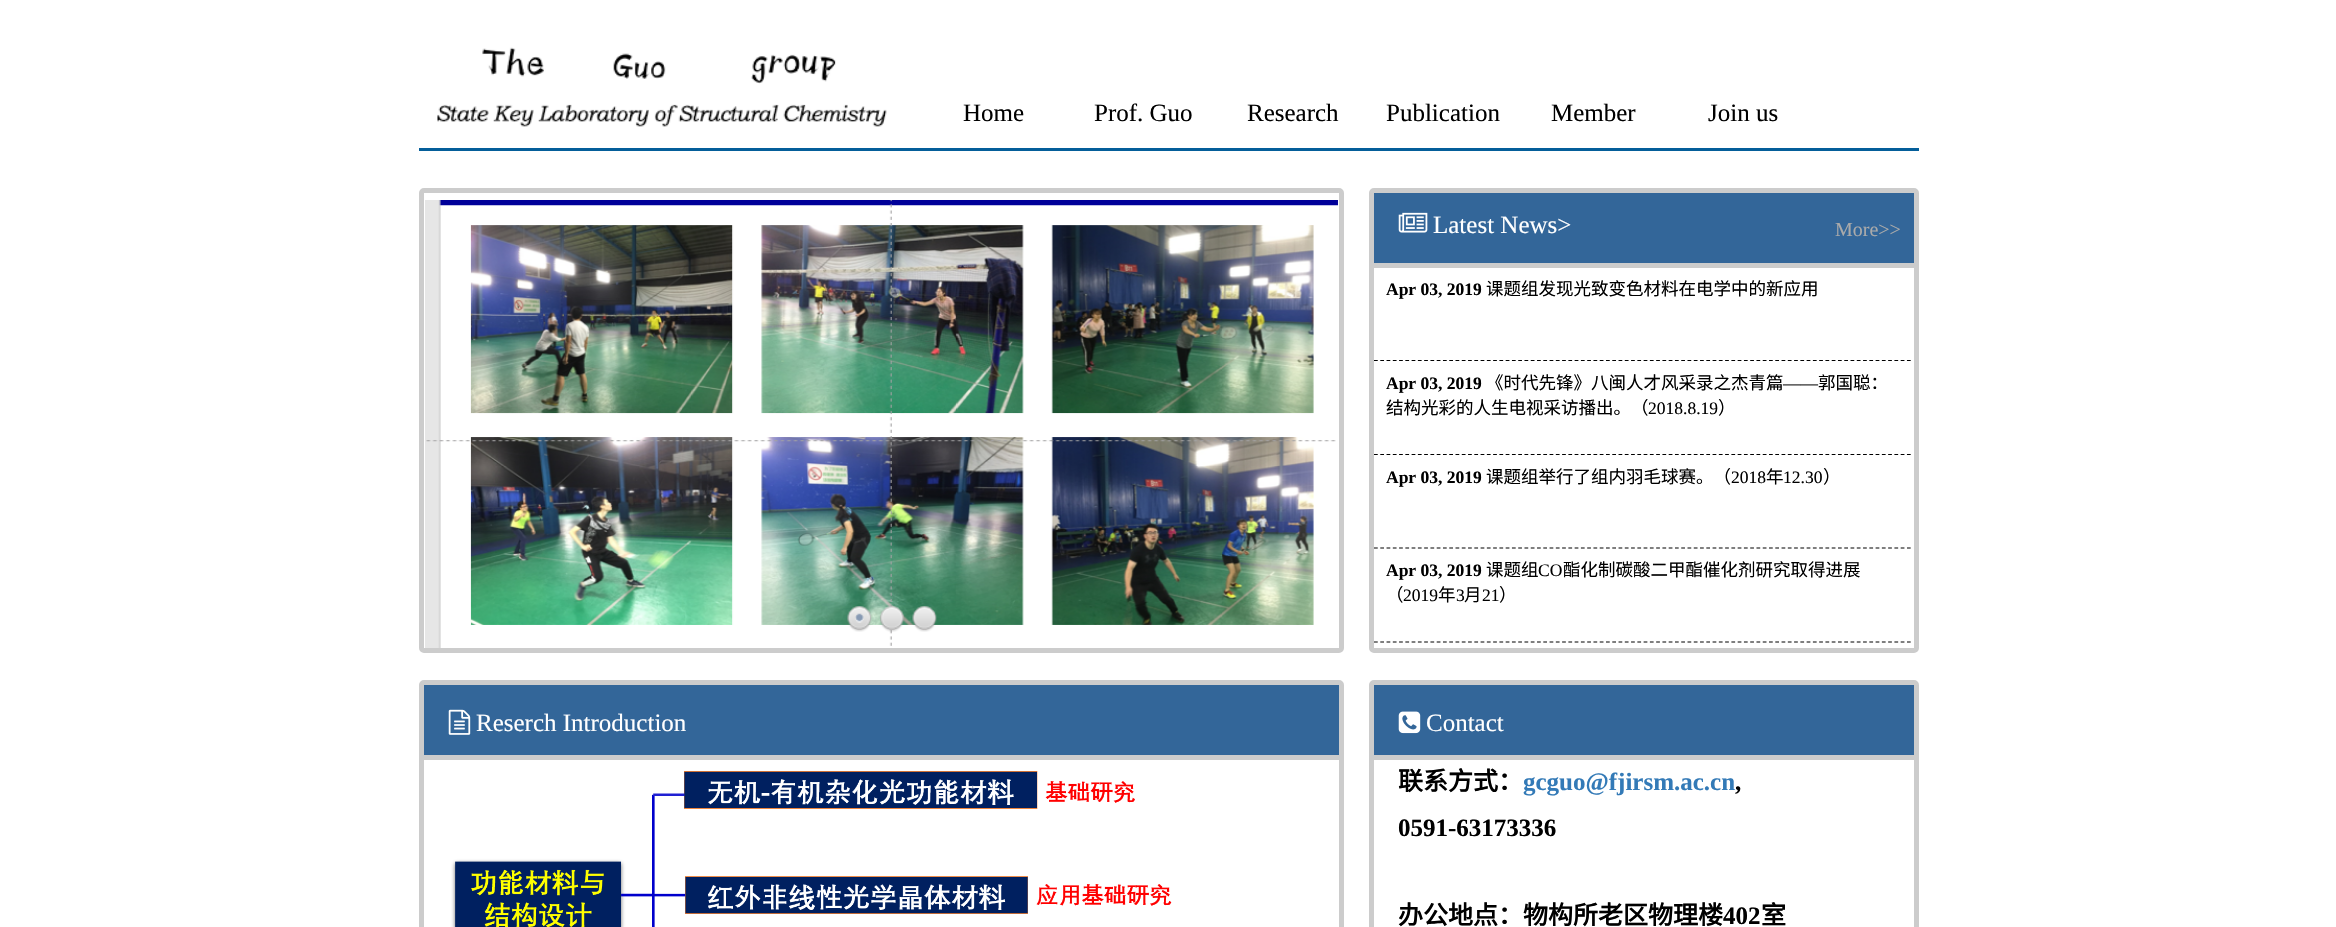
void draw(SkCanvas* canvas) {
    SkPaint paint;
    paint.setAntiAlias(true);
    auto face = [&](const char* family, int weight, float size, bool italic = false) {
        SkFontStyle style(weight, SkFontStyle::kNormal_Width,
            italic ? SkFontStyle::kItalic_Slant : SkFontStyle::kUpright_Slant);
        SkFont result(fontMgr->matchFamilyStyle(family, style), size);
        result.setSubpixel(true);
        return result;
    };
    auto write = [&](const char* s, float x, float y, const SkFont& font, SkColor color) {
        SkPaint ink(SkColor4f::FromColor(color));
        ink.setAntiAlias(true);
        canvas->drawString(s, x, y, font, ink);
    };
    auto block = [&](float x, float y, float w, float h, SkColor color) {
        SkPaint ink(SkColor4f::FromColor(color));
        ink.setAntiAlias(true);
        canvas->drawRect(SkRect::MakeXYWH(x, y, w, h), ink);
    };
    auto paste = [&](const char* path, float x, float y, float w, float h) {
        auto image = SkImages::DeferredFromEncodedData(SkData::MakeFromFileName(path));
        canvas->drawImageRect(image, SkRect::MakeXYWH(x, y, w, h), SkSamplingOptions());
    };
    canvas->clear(SK_ColorWHITE);
    block(419, 148, 1500, 3, SkColorSetRGB(4, 94, 154));
    paste("pic1.png", 437, 47, 450, 80);
    auto kFont1 = face("Liberation Serif", 400, 25);
    write("Home", 963, 121, kFont1, SK_ColorBLACK);
    write("Prof. Guo", 1094, 121, kFont1, SK_ColorBLACK);
    write("Research", 1247, 121, kFont1, SK_ColorBLACK);
    write("Publication", 1386, 121, kFont1, SK_ColorBLACK);
    write("Member", 1551, 121, kFont1, SK_ColorBLACK);
    write("Join us", 1708, 121, kFont1, SK_ColorBLACK);
    paint.setStyle(SkPaint::kStroke_Style);
    paint.setStrokeWidth(5);
    paint.setColor(SkColorSetRGB(204, 204, 204));
    canvas->drawRoundRect(SkRect::MakeXYWH(421.5f, 190.5f, 920, 460), 2.5f, 2.5f, paint);
    paste("pic2.png", 425, 200, 913, 448);
    paste("pic3.png", 847, 606, 25, 26);
    paste("pic4.png", 880, 606, 24, 26);
    paste("pic5.png", 912, 606, 25, 26);
    canvas->drawRoundRect(SkRect::MakeXYWH(1371.5f, 190.5f, 545, 460), 2.5f, 2.5f, paint);
    block(1374, 193, 540, 70, SkColorSetRGB(51, 102, 153));
    block(1374, 263, 540, 5, SkColorSetRGB(204, 204, 204));
    paste("pic6.png", 1398, 212, 30, 21);
    write("Latest News>", 1433, 233, kFont1, SK_ColorWHITE);
    auto kFont2 = face("Liberation Serif", 400, 20);
    write("More>>", 1835, 236, kFont2, SkColorSetRGB(170, 170, 170));
    paint.setStrokeWidth(1.2f);
    paint.setColor(SK_ColorBLACK);
    paint.setPathEffect(SkDashPathEffect::Make({{3.75f, 2.52f}}, 0));
    canvas->drawPath(SkPathBuilder().moveTo(1374, 360.5f).lineTo(1911, 360.5f).detach(), paint);
    paint.setPathEffect(nullptr);
    auto kFont3 = face("Liberation Serif", 700, 17.5f);
    write("Apr 03, 2019", 1386, 295, kFont3, SK_ColorBLACK);
    auto kFont4 = face("Noto Sans CJK SC", 400, 17.5f);
    write("课题组发现光致变色材料在电学中的新应用", 1486, 295, kFont4, SK_ColorBLACK);
    paint.setPathEffect(SkDashPathEffect::Make({{3.75f, 2.52f}}, 0));
    canvas->drawPath(SkPathBuilder().moveTo(1374, 454.5f).lineTo(1911, 454.5f).detach(), paint);
    paint.setPathEffect(nullptr);
    write("Apr 03, 2019", 1386, 389, kFont3, SK_ColorBLACK);
    write("《时代先锋》八闽人才风采录之杰青篇", 1486, 389, kFont4, SK_ColorBLACK);
    auto kFont5 = face("Liberation Serif", 400, 17.5f);
    write("——", 1783, 389, kFont5, SK_ColorBLACK);
    write("郭国聪：", 1818, 389, kFont4, SK_ColorBLACK);
    write("结构光彩的人生电视采访播出。（", 1386, 414, kFont4, SK_ColorBLACK);
    write("2018.8.19", 1648, 414, kFont5, SK_ColorBLACK);
    write("）", 1718, 414, kFont4, SK_ColorBLACK);
    paint.setPathEffect(SkDashPathEffect::Make({{3.75f, 2.52f}}, 0));
    canvas->drawPath(SkPathBuilder().moveTo(1374, 548).lineTo(1911, 548).detach(), paint);
    paint.setPathEffect(nullptr);
    write("Apr 03, 2019", 1386, 483, kFont3, SK_ColorBLACK);
    write("课题组举行了组内羽毛球赛。（", 1486, 483, kFont4, SK_ColorBLACK);
    write("2018", 1731, 483, kFont5, SK_ColorBLACK);
    write("年", 1766, 483, kFont4, SK_ColorBLACK);
    write("12.30", 1783, 483, kFont5, SK_ColorBLACK);
    write("）", 1823, 483, kFont4, SK_ColorBLACK);
    paint.setPathEffect(SkDashPathEffect::Make({{3.75f, 2.52f}}, 0));
    canvas->drawPath(SkPathBuilder().moveTo(1374, 642).lineTo(1911, 642).detach(), paint);
    paint.setPathEffect(nullptr);
    write("Apr 03, 2019", 1386, 576, kFont3, SK_ColorBLACK);
    write("课题组", 1486, 576, kFont4, SK_ColorBLACK);
    write("CO", 1538, 576, kFont5, SK_ColorBLACK);
    write("酯化制碳酸二甲酯催化剂研究取得进展", 1563, 576, kFont4, SK_ColorBLACK);
    write("（", 1386, 601, kFont4, SK_ColorBLACK);
    write("2019", 1403, 601, kFont5, SK_ColorBLACK);
    write("年", 1438, 601, kFont4, SK_ColorBLACK);
    write("3", 1456, 601, kFont5, SK_ColorBLACK);
    write("月", 1464, 601, kFont4, SK_ColorBLACK);
    write("21", 1482, 601, kFont5, SK_ColorBLACK);
    write("）", 1499, 601, kFont4, SK_ColorBLACK);
    paint.setStrokeWidth(5);
    paint.setColor(SkColorSetRGB(204, 204, 204));
    canvas->drawRoundRect(SkRect::MakeXYWH(421.5f, 682.5f, 920, 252), 2.5f, 2.5f, paint);
    block(424, 685, 915, 70, SkColorSetRGB(51, 102, 153));
    block(424, 755, 915, 5, SkColorSetRGB(204, 204, 204));
    paste("pic7.png", 448, 709, 23, 26);
    write("Reserch Introduction", 476, 731, kFont1, SK_ColorWHITE);
    paste("pic8.png", 451, 771, 721, 156);
    canvas->drawRoundRect(SkRect::MakeXYWH(1371.5f, 682.5f, 545, 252), 2.5f, 2.5f, paint);
    block(1374, 685, 540, 70, SkColorSetRGB(51, 102, 153));
    block(1374, 755, 540, 5, SkColorSetRGB(204, 204, 204));
    paste("pic9.png", 1398, 711, 23, 23);
    write("Contact", 1426, 731, kFont1, SK_ColorWHITE);
    auto kFont6 = face("Noto Sans CJK SC", 700, 25);
    write("联系方式：", 1398, 790, kFont6, SK_ColorBLACK);
    auto kFont7 = face("Liberation Serif", 700, 25);
    write("gcguo@fjirsm.ac.cn", 1523, 790, kFont7, SkColorSetRGB(51, 122, 183));
    write(",", 1735, 790, kFont7, SK_ColorBLACK);
    write("0591-63173336", 1398, 836, kFont7, SK_ColorBLACK);
    write("办公地点：物构所老区物理楼", 1398, 924, kFont6, SK_ColorBLACK);
    write("402", 1723, 924, kFont7, SK_ColorBLACK);
    write("室", 1761, 924, kFont6, SK_ColorBLACK);
}
